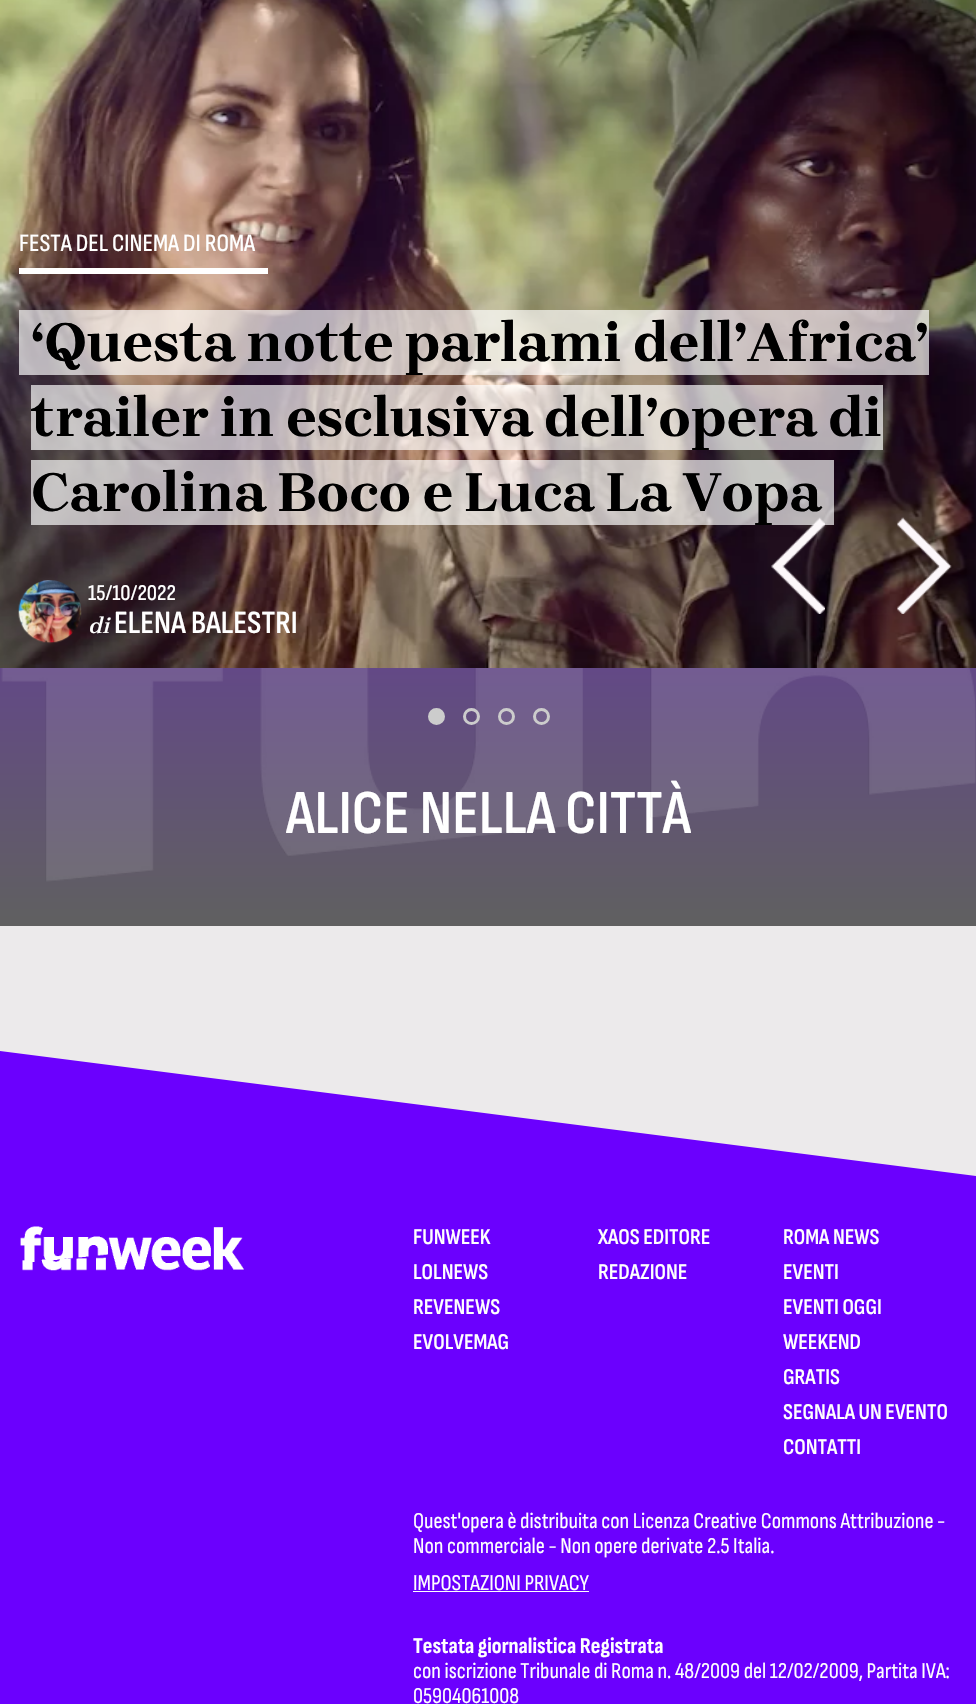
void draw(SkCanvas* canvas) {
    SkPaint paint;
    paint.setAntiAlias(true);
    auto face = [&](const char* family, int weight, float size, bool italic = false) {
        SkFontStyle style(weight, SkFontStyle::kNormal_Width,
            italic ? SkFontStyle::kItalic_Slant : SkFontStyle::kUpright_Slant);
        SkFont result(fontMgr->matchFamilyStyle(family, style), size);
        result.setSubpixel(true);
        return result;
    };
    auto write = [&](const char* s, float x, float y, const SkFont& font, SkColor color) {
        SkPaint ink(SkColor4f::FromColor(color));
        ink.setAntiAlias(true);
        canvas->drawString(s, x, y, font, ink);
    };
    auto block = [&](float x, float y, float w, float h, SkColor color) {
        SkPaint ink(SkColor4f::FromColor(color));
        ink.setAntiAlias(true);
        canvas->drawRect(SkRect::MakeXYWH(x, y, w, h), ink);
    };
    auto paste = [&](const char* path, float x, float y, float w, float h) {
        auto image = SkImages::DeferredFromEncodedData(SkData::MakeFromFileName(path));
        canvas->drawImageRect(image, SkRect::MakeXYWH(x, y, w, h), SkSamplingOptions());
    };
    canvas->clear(SkColorSetRGB(236, 234, 235));
    {
        const SkColor colors[] = {SkColorSetRGB(107, 0, 254), SkColorSetRGB(96, 96, 96)};
        const float stops[] = {0, 1};
        const SkPoint ends[] = {{488, -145}, {488, 926}};
        paint.setShader(SkGradientShader::MakeLinear(ends, colors, stops, 2, SkTileMode::kClamp));
        paint.setAlpha(255);
    }
    canvas->drawRect(SkRect::MakeXYWH(0, 0, 976, 926), paint);
    paste("pic1.png", 0, 0, 976, 668);
    block(19, 268, 249, 6, SK_ColorWHITE);
    auto kFont1 = face("Sofia Sans Condensed", 500, 25);
    write("FESTA DEL CINEMA DI ROMA", 19, 251, kFont1, SK_ColorWHITE);
    block(19, 310, 910, 65, SkColorSetARGB(171, 255, 255, 255));
    auto kFont2 = face("Brygada 1918", 700, 56.25f);
    write("‘Questa notte parlami dell’Africa’", 31, 361, kFont2, SK_ColorBLACK);
    block(31, 385, 852, 65, SkColorSetARGB(171, 255, 255, 255));
    write("trailer in esclusiva dell’opera di", 31, 436, kFont2, SK_ColorBLACK);
    block(31, 460, 803, 65, SkColorSetARGB(171, 255, 255, 255));
    write("Carolina Boco e Luca La Vopa", 31, 511, kFont2, SK_ColorBLACK);
    paste("pic2.png", 18, 580, 64, 64);
    auto kFont3 = face("Sofia Sans Condensed", 500, 22.5f);
    write("15/10/2022", 88, 600, kFont3, SK_ColorWHITE);
    auto kFont4 = face("Brygada 1918", 600, 22.5f, true);
    write("di", 88, 633, kFont4, SK_ColorWHITE);
    auto kFont5 = face("Sofia Sans Condensed", 600, 32.5f);
    write("ELENA BALESTRI", 114, 633, kFont5, SK_ColorWHITE);
    paste("pic3.png", 771, 517, 54, 97);
    paste("pic4.png", 897, 517, 55, 97);
    auto kFont6 = face("Sofia Sans Condensed", 600, 62.5f);
    write("ALICE NELLA CITTÀ", 286, 833, kFont6, SK_ColorWHITE);
    paste("pic5.png", 1, 668, 975, 214);
    paint.setShader(nullptr);
    paint.setColor(SkColorSetRGB(204, 204, 204));
    canvas->drawCircle(436.5f, 716.5f, 7, paint);
    paint.setStyle(SkPaint::kStroke_Style);
    paint.setStrokeWidth(3);
    canvas->drawCircle(436.5f, 716.5f, 7, paint);
    canvas->drawCircle(471.5f, 716.5f, 7, paint);
    canvas->drawCircle(506.5f, 716.5f, 7, paint);
    canvas->drawCircle(541.5f, 716.5f, 7, paint);
    paint.setStyle(SkPaint::kFill_Style);
    paint.setColor(SkColorSetRGB(107, 0, 254));
    canvas->drawPath(SkPathBuilder().moveTo(0, 1051).lineTo(0, 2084).lineTo(976, 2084).lineTo(976, 1176).close().detach(), paint);
    paste("pic6.png", 20, 1226, 224, 45);
    auto kFont7 = face("Sofia Sans Condensed", 600, 22.5f);
    write("FUNWEEK", 413, 1244, kFont7, SK_ColorWHITE);
    write("LOLNEWS", 413, 1279, kFont7, SK_ColorWHITE);
    write("REVENEWS", 413, 1314, kFont7, SK_ColorWHITE);
    write("EVOLVEMAG", 413, 1349, kFont7, SK_ColorWHITE);
    write("XAOS EDITORE", 598, 1244, kFont7, SK_ColorWHITE);
    write("REDAZIONE", 598, 1279, kFont7, SK_ColorWHITE);
    write("ROMA NEWS", 783, 1244, kFont7, SK_ColorWHITE);
    write("EVENTI", 783, 1279, kFont7, SK_ColorWHITE);
    write("EVENTI OGGI", 783, 1314, kFont7, SK_ColorWHITE);
    write("WEEKEND", 783, 1349, kFont7, SK_ColorWHITE);
    write("GRATIS", 783, 1384, kFont7, SK_ColorWHITE);
    write("SEGNALA UN EVENTO", 783, 1419, kFont7, SK_ColorWHITE);
    write("CONTATTI", 783, 1454, kFont7, SK_ColorWHITE);
    auto kFont8 = face("Sofia Sans Condensed", 400, 22.5f);
    write("Quest'opera è distribuita con Licenza Creative Commons Attribuzione -", 413, 1528, kFont8, SK_ColorWHITE);
    write("Non commerciale - Non opere derivate 2.5 Italia.", 413, 1553, kFont8, SK_ColorWHITE);
    write("IMPOSTAZIONI PRIVACY", 413, 1590, kFont8, SK_ColorWHITE);
    block(413, 1591, 176, 1, SK_ColorWHITE);
    auto kFont9 = face("Sofia Sans Condensed", 700, 22.5f);
    write("Testata giornalistica Registrata", 413, 1653, kFont9, SK_ColorWHITE);
    write("con iscrizione Tribunale di Roma n. 48/2009 del 12/02/2009, Partita IVA:", 413, 1678, kFont8, SK_ColorWHITE);
    write("05904061008", 413, 1703, kFont8, SK_ColorWHITE);
}
